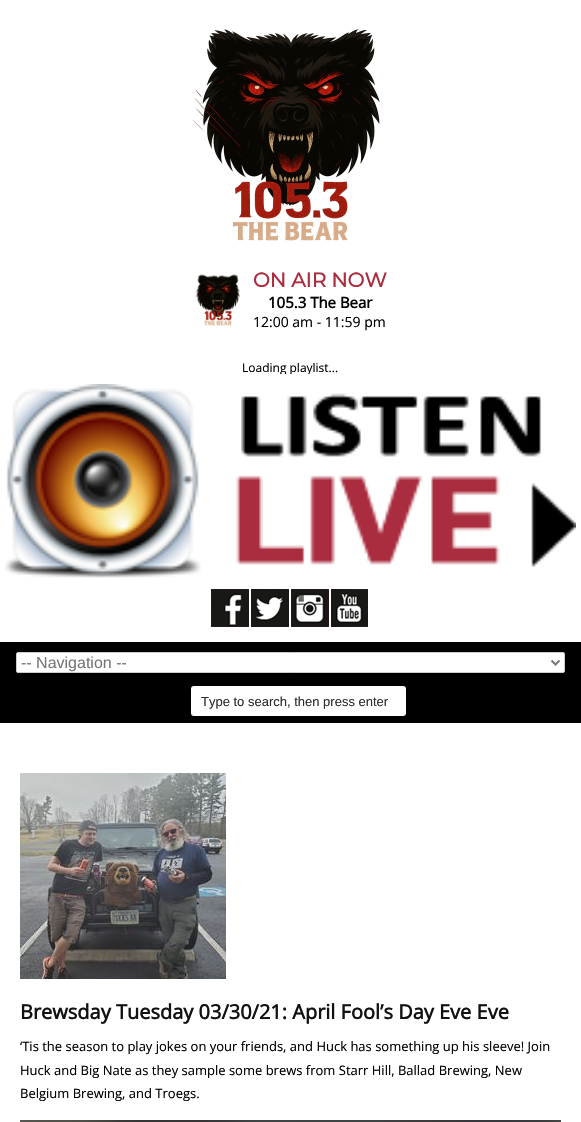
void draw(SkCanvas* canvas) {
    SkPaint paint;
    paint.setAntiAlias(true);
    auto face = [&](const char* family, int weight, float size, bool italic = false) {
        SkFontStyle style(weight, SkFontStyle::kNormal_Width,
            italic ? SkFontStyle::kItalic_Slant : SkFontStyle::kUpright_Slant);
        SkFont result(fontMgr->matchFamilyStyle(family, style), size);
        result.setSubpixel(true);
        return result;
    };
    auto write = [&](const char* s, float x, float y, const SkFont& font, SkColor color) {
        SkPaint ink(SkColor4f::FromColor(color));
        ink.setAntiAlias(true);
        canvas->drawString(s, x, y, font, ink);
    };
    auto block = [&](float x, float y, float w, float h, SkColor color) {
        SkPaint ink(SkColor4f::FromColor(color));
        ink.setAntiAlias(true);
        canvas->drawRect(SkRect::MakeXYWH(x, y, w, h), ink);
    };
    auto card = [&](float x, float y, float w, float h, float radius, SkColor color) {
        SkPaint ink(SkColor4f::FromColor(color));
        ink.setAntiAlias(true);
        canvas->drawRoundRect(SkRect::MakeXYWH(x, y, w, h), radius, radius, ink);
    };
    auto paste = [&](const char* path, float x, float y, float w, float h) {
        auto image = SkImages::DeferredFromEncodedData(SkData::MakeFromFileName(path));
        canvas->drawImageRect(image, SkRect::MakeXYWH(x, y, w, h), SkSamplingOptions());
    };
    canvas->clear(SK_ColorWHITE);
    paste("pic1.png", 192, 29, 188, 212);
    paste("pic2.png", 195, 274, 45, 52);
    auto kFont1 = face("Montserrat", 700, 20);
    write("ON AIR NOW", 253, 287, kFont1, SkColorSetRGB(169, 45, 62));
    auto kFont2 = face("Open Sans", 700, 15);
    write("105.3 The Bear", 268, 308, kFont2, SK_ColorBLACK);
    auto kFont3 = face("Open Sans", 400, 14);
    write("12:00 am - 11:59 pm", 253, 327, kFont3, SK_ColorBLACK);
    canvas->save();
    canvas->clipRect(SkRect::MakeXYWH(5, 341, 571, 33));
    auto kFont4 = face("Open Sans", 400, 12);
    write("Loading playlist...", 242, 372, kFont4, SK_ColorBLACK);
    canvas->restore();
    paste("pic3.png", 5, 384, 571, 194);
    paste("pic4.png", 211, 589, 38, 38);
    paste("pic5.png", 251, 589, 38, 38);
    paste("pic6.png", 291, 589, 38, 38);
    paste("pic7.png", 331, 589, 37, 38);
    block(0, 642, 581, 81, SK_ColorBLACK);
    paint.setColor(SK_ColorWHITE);
    canvas->drawRoundRect(SkRect::MakeXYWH(16.5f, 652.5f, 548, 20), 1.5f, 1.5f, paint);
    paint.setStyle(SkPaint::kStroke_Style);
    paint.setStrokeWidth(1);
    paint.setColor(SkColorSetRGB(204, 204, 204));
    canvas->drawRoundRect(SkRect::MakeXYWH(16.5f, 652.5f, 548, 20), 1.5f, 1.5f, paint);
    paint.setStrokeWidth(2);
    paint.setColor(SkColorSetRGB(119, 119, 119));
    canvas->drawPath(SkPathBuilder().moveTo(551.5f, 660.5f).lineTo(555.5f, 664.5f).lineTo(559.5f, 660.5f).detach(), paint);
    auto kFont5 = face("Liberation Sans", 400, 16);
    write("-- Navigation --", 21, 668, kFont5, SkColorSetRGB(119, 119, 119));
    card(191, 686, 215, 30, 3, SK_ColorWHITE);
    auto kFont6 = face("Liberation Sans", 400, 13);
    write("Type to search, then press enter", 201, 706, kFont6, SkColorSetRGB(45, 45, 45));
    paste("pic8.png", 20, 773, 206, 206);
    auto kFont7 = face("Open Sans", 700, 20);
    write("Brewsday Tuesday 03/30/21: April Fool’s Day Eve Eve", 20, 1019, kFont7, SkColorSetRGB(18, 18, 18));
    auto kFont8 = face("Open Sans", 400, 13);
    write("‘Tis the season to play jokes on your friends, and Huck has something up his sleeve! Join", 20, 1051, kFont8, SK_ColorBLACK);
    write("Huck and Big Nate as they sample some brews from Starr Hill, Ballad Brewing, New", 20, 1075, kFont8, SK_ColorBLACK);
    write("Belgium Brewing, and Troegs.", 20, 1098, kFont8, SK_ColorBLACK);
    paste("pic9.png", 20, 1120, 541, 2);
}
